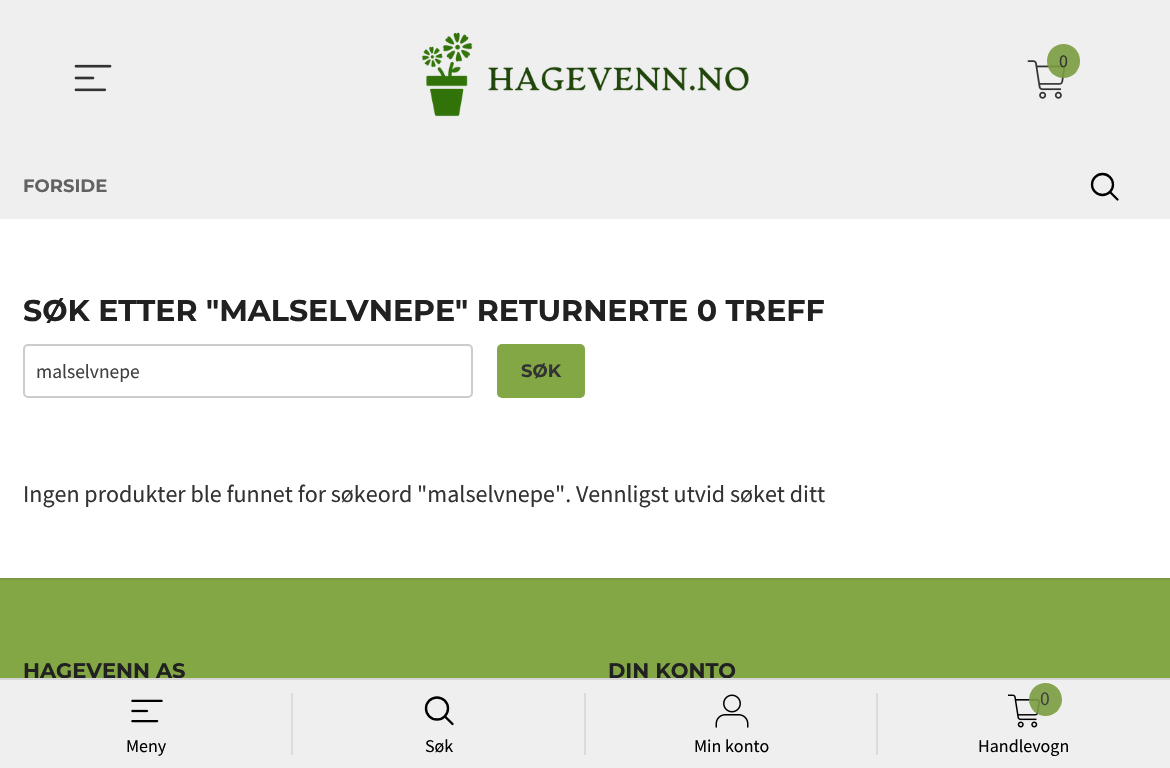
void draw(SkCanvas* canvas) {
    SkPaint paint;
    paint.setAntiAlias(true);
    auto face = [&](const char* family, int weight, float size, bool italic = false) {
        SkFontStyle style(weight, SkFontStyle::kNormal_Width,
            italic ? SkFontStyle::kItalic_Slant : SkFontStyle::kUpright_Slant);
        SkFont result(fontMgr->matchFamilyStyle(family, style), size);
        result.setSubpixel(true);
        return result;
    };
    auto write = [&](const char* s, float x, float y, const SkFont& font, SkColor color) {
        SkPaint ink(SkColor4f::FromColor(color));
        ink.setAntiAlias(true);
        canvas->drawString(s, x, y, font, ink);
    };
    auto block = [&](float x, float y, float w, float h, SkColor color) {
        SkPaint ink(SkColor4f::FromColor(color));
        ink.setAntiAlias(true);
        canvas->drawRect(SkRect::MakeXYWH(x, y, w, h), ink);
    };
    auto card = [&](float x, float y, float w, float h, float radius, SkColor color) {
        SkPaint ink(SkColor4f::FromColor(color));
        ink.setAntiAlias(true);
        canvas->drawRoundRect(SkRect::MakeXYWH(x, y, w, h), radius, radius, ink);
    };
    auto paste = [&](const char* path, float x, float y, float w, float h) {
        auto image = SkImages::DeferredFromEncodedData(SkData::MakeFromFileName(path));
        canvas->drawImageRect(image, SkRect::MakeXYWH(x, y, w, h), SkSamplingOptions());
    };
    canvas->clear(SkColorSetRGB(239, 239, 239));
    paste("pic1.png", 74, 64, 38, 28);
    paste("pic2.png", 421, 32, 328, 85);
    paste("pic3.png", 1027, 60, 38, 39);
    card(1047, 44, 33, 34, 16.5f, SkColorSetARGB(230, 122, 156, 64));
    auto kFont1 = face("Source Sans Pro", 400, 18);
    write("0", 1059, 67, kFont1, SkColorSetRGB(50, 53, 45));
    auto kFont2 = face("Montserrat", 700, 18);
    write("FORSIDE", 23, 192, kFont2, SkColorSetRGB(98, 98, 98));
    paint.setStyle(SkPaint::kStroke_Style);
    paint.setStrokeWidth(2.3f);
    paint.setColor(SK_ColorBLACK);
    canvas->drawCircle(1102.5f, 184.5f, 10.5f, paint);
    paint.setStrokeCap(SkPaint::kRound_Cap);
    canvas->drawPath(SkPathBuilder().moveTo(1117.5f, 199.5f).lineTo(1110, 192).detach(), paint);
    block(0, 219, 1170, 359, SK_ColorWHITE);
    auto kFont3 = face("Montserrat", 700, 30);
    write("SØK ETTER \"MALSELVNEPE\" RETURNERTE 0 TREFF", 23, 321, kFont3, SkColorSetRGB(33, 33, 33));
    paint.setStrokeWidth(2);
    paint.setStrokeCap(SkPaint::kButt_Cap);
    paint.setColor(SkColorSetRGB(204, 204, 204));
    canvas->drawRoundRect(SkRect::MakeXYWH(24, 345, 448, 52), 4, 4, paint);
    auto kFont4 = face("Source Sans Pro", 400, 19.5f);
    write("malselvnepe", 36, 378, kFont4, SkColorSetRGB(64, 64, 64));
    card(497, 344, 88, 54, 5, SkColorSetRGB(131, 167, 68));
    write("SØK", 521, 377, kFont2, SkColorSetRGB(51, 51, 51));
    auto kFont5 = face("Source Sans Pro", 400, 24);
    write("Ingen produkter ble funnet for søkeord \"malselvnepe\". Vennligst utvid søket ditt", 23, 502, kFont5, SkColorSetRGB(51, 51, 51));
    block(0, 580, 1170, 98, SkColorSetRGB(131, 167, 68));
    block(0, 578, 1170, 2, SkColorSetRGB(123, 155, 66));
    auto kFont6 = face("Montserrat", 700, 21);
    write("HAGEVENN AS", 23, 678, kFont6, SkColorSetRGB(33, 33, 33));
    write("DIN KONTO", 608, 678, kFont6, SkColorSetRGB(33, 33, 33));
    block(0, 678, 1170, 2, SkColorSetRGB(213, 213, 213));
    paste("pic4.png", 131, 699, 32, 24);
    write("Meny", 126, 752, kFont1, SK_ColorBLACK);
    block(291, 693, 2, 62, SkColorSetRGB(219, 219, 219));
    paint.setStrokeWidth(2.4f);
    paint.setColor(SK_ColorBLACK);
    canvas->drawCircle(437, 708.5f, 11, paint);
    paint.setStrokeCap(SkPaint::kRound_Cap);
    canvas->drawPath(SkPathBuilder().moveTo(452.5f, 724).lineTo(445, 716.5f).detach(), paint);
    write("Søk", 425, 752, kFont1, SK_ColorBLACK);
    block(584, 693, 2, 62, SkColorSetRGB(219, 219, 219));
    paste("pic5.png", 715, 694, 34, 34);
    write("Min konto", 694, 752, kFont1, SK_ColorBLACK);
    block(876, 693, 2, 62, SkColorSetRGB(219, 219, 219));
    paste("pic6.png", 1008, 694, 32, 34);
    paint.setStyle(SkPaint::kFill_Style);
    paint.setColor(SkColorSetARGB(230, 122, 156, 64));
    canvas->drawCircle(1045.5f, 699.5f, 16.5f, paint);
    write("0", 1040, 705, kFont4, SkColorSetRGB(64, 64, 64));
    write("Handlevogn", 978, 752, kFont1, SK_ColorBLACK);
}
